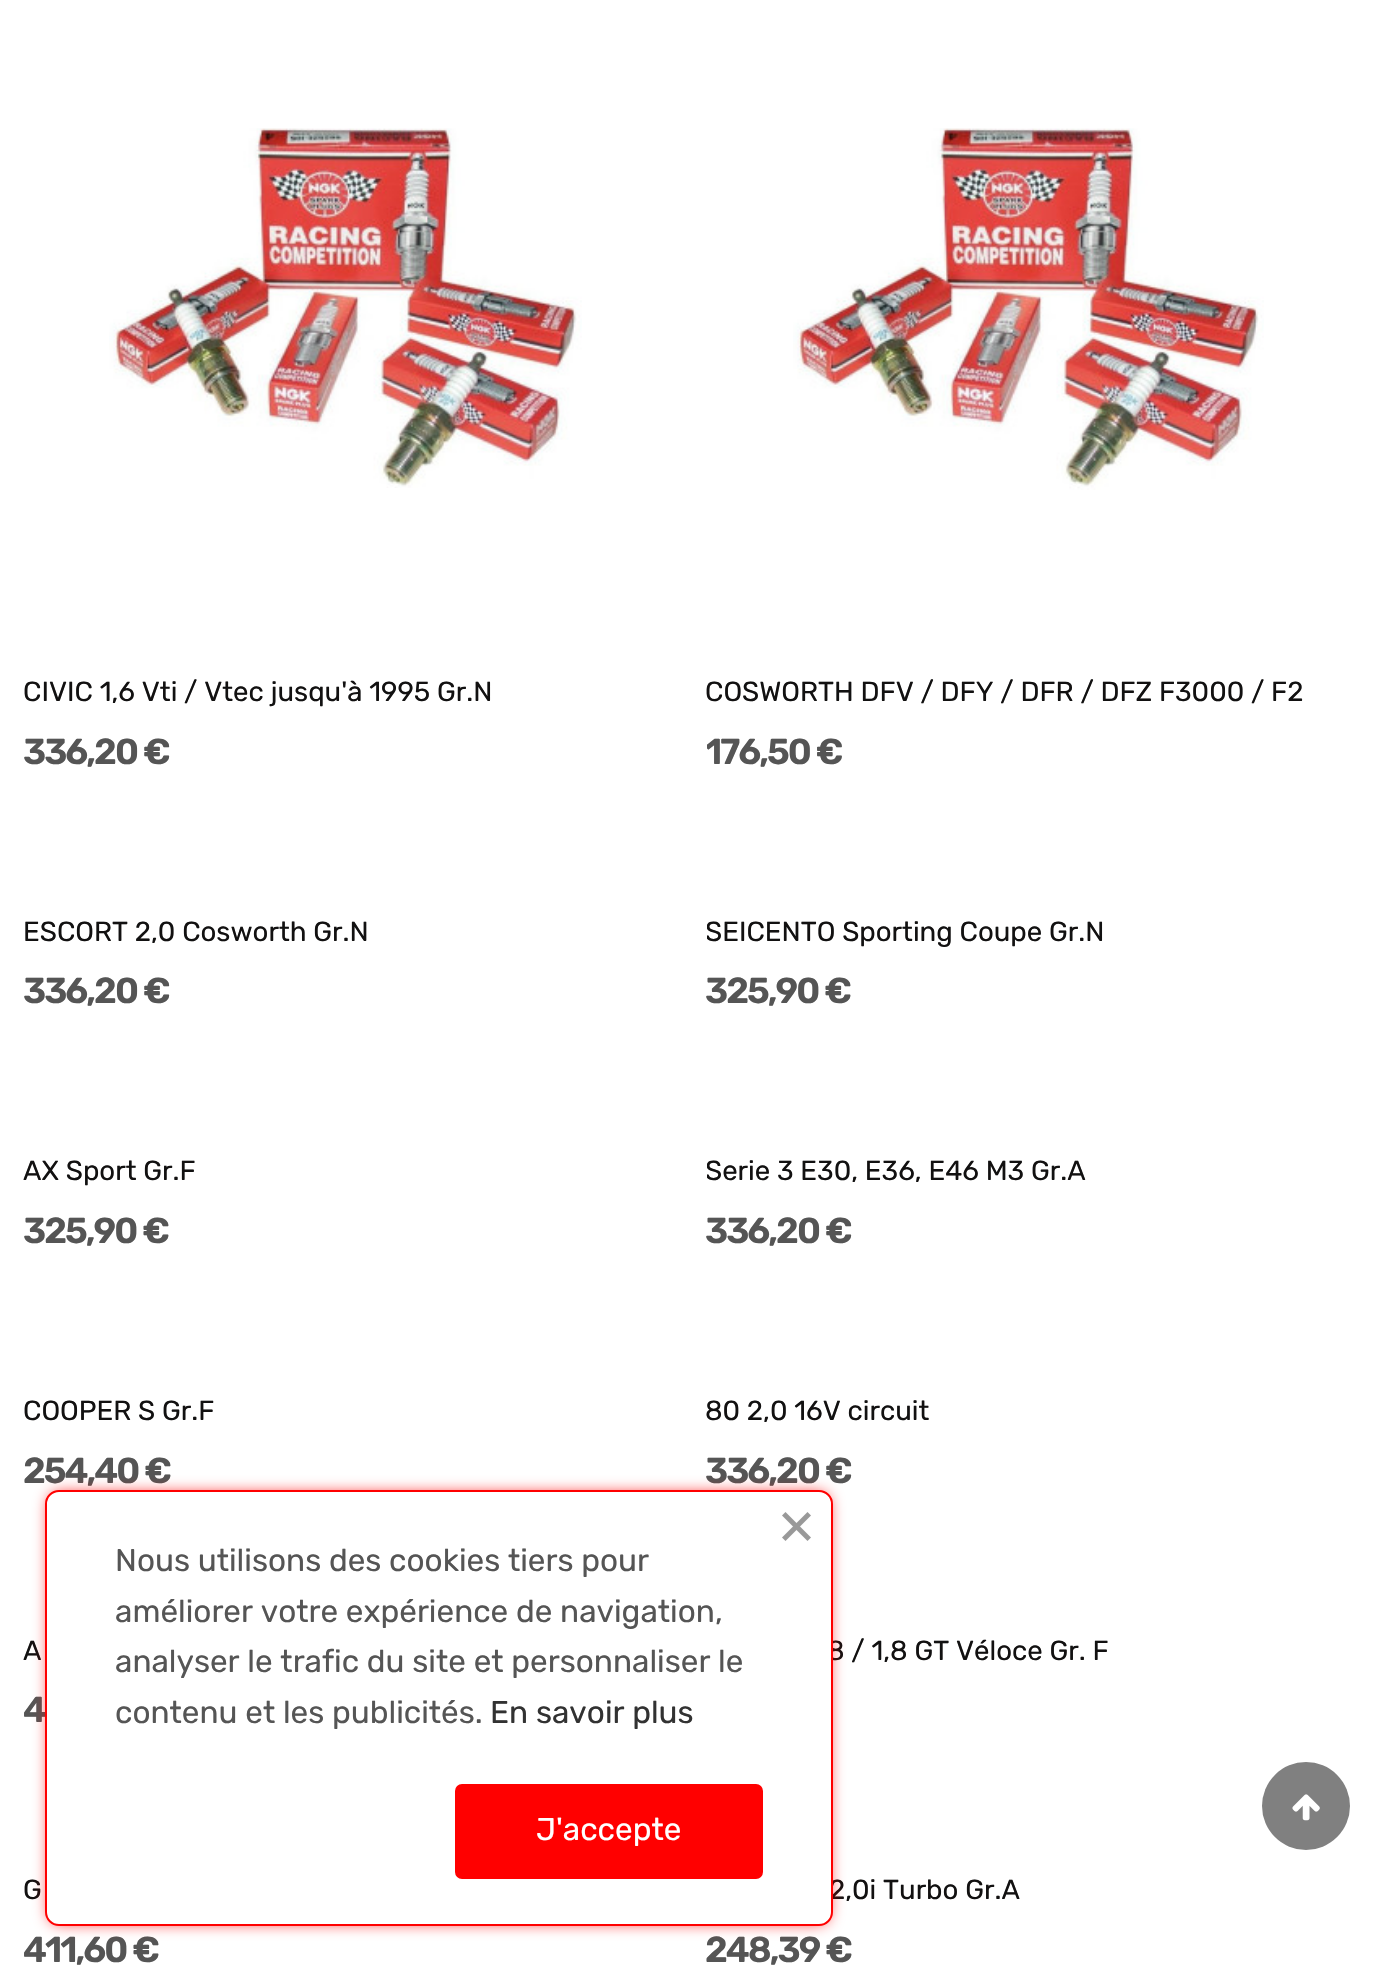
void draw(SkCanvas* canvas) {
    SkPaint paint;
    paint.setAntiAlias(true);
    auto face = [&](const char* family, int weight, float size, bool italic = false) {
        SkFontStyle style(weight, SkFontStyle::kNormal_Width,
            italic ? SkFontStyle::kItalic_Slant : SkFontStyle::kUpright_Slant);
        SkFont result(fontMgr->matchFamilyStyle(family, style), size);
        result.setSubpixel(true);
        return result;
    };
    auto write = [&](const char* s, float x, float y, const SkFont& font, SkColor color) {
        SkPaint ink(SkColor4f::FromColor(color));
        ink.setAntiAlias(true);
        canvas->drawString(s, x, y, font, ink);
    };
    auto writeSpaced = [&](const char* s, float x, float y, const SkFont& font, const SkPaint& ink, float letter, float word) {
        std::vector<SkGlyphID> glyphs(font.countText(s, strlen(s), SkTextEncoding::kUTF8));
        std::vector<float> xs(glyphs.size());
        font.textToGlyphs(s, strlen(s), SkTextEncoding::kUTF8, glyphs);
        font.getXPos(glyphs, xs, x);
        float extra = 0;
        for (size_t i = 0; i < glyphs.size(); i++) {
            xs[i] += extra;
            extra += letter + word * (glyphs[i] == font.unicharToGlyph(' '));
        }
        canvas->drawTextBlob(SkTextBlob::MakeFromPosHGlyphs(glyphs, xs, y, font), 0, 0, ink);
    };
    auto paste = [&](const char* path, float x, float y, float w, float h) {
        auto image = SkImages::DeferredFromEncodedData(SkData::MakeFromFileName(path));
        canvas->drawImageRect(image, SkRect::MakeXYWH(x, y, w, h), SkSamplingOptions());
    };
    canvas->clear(SK_ColorWHITE);
    paste("pic1.png", 109, 128, 473, 360);
    auto kFont1 = face("Rubik", 400, 27.6f);
    write("CIVIC 1,6 Vti / Vtec jusqu'à 1995 Gr.N", 23, 701, kFont1, SkColorSetRGB(18, 17, 17));
    auto kFont2 = face("Rubik", 600, 36);
    paint.setColor(SkColorSetRGB(85, 85, 85));
    writeSpaced("336,20 €", 23, 764, kFont2, paint, -2, 0);
    paste("pic2.png", 793, 128, 471, 362);
    write("COSWORTH DFV / DFY / DFR / DFZ F3000 / F2", 705, 701, kFont1, SkColorSetRGB(18, 17, 17));
    canvas->save();
    canvas->clipPath(SkPathBuilder().moveTo(714, -13).lineTo(1348, -13).cubicTo(1352, -13, 1355, -10, 1355, -6).lineTo(1355, 767).cubicTo(1355, 771, 1352, 774, 1348, 774).lineTo(714, 774).cubicTo(710, 774, 707, 771, 707, 767).lineTo(707, -6).cubicTo(707, -10, 710, -13, 714, -13).close().detach(), true);
    writeSpaced("176,50 €", 705, 764, kFont2, paint, -2, 0);
    canvas->restore();
    write("ESCORT 2,0 Cosworth Gr.N", 23, 941, kFont1, SkColorSetRGB(18, 17, 17));
    writeSpaced("336,20 €", 23, 1003, kFont2, paint, -2, 0);
    canvas->save();
    canvas->clipPath(SkPathBuilder().moveTo(714, 826).lineTo(1348, 826).cubicTo(1352, 826, 1355, 829, 1355, 833).lineTo(1355, 1006).cubicTo(1355, 1010, 1352, 1013, 1348, 1013).lineTo(714, 1013).cubicTo(710, 1013, 707, 1010, 707, 1006).lineTo(707, 833).cubicTo(707, 829, 710, 826, 714, 826).close().detach(), true);
    write("SEICENTO Sporting Coupe Gr.N", 705, 941, kFont1, SkColorSetRGB(18, 17, 17));
    canvas->restore();
    writeSpaced("325,90 €", 705, 1003, kFont2, paint, -2, 0);
    write("AX Sport Gr.F", 23, 1180, kFont1, SkColorSetRGB(18, 17, 17));
    writeSpaced("325,90 €", 23, 1243, kFont2, paint, -2, 0);
    canvas->save();
    canvas->clipPath(SkPathBuilder().moveTo(714, 1064).lineTo(1348, 1064).cubicTo(1352, 1064, 1355, 1067, 1355, 1071).lineTo(1355, 1246).cubicTo(1355, 1250, 1352, 1253, 1348, 1253).lineTo(714, 1253).cubicTo(710, 1253, 707, 1250, 707, 1246).lineTo(707, 1071).cubicTo(707, 1067, 710, 1064, 714, 1064).close().detach(), true);
    write("Serie 3 E30, E36, E46 M3 Gr.A", 705, 1180, kFont1, SkColorSetRGB(18, 17, 17));
    canvas->restore();
    writeSpaced("336,20 €", 705, 1243, kFont2, paint, -2, 0);
    write("COOPER S Gr.F", 23, 1420, kFont1, SkColorSetRGB(18, 17, 17));
    writeSpaced("254,40 €", 23, 1483, kFont2, paint, -2, 0);
    write("80 2,0 16V circuit", 705, 1420, kFont1, SkColorSetRGB(18, 17, 17));
    writeSpaced("336,20 €", 705, 1483, kFont2, paint, -2, 0);
    write("A", 23, 1660, kFont1, SkColorSetRGB(18, 17, 17));
    writeSpaced("4", 23, 1722, kFont2, paint, -2, 0);
    write("8 / 1,8 GT Véloce Gr. F", 827, 1660, kFont1, SkColorSetRGB(18, 17, 17));
    write("G", 23, 1899, kFont1, SkColorSetRGB(18, 17, 17));
    writeSpaced("411,60 €", 23, 1962, kFont2, paint, -2, 0);
    write("2,0i Turbo Gr.A", 829, 1899, kFont1, SkColorSetRGB(18, 17, 17));
    writeSpaced("248,39 €", 705, 1962, kFont2, paint, -2, 0);
    paint.setColor(SkColorSetRGB(255, 0, 0));
    paint.setMaskFilter(SkMaskFilter::MakeBlur(kNormal_SkBlurStyle, 8));
    canvas->drawRoundRect(SkRect::MakeXYWH(50, 1494, 778, 428), 9, 9, paint);
    paint.setMaskFilter(nullptr);
    paint.setColor(SK_ColorWHITE);
    canvas->drawRoundRect(SkRect::MakeXYWH(46, 1491, 786, 434), 13, 13, paint);
    paint.setStyle(SkPaint::kStroke_Style);
    paint.setStrokeWidth(2);
    paint.setColor(SkColorSetRGB(255, 0, 0));
    canvas->drawRoundRect(SkRect::MakeXYWH(46, 1491, 786, 434), 13, 13, paint);
    paint.setStyle(SkPaint::kFill_Style);
    paint.setColor(SkColorSetRGB(153, 153, 153));
    canvas->drawPath(SkPathBuilder().moveTo(782, 1537.5f).lineTo(807.5f, 1512).lineTo(811, 1515.5f).lineTo(785.5f, 1541).close().detach(), paint);
    canvas->drawPath(SkPathBuilder().moveTo(785.5f, 1512).lineTo(811, 1537.5f).lineTo(807.5f, 1541).lineTo(782, 1515.5f).close().detach(), paint);
    auto kFont3 = face("Rubik", 400, 31.5f);
    write("Nous utilisons des cookies tiers pour", 115, 1571, kFont3, SkColorSetRGB(85, 85, 85));
    write("améliorer votre expérience de navigation,", 115, 1622, kFont3, SkColorSetRGB(85, 85, 85));
    write("analyser le trafic du site et personnaliser le", 115, 1672, kFont3, SkColorSetRGB(85, 85, 85));
    write("contenu et les publicités.", 115, 1723, kFont3, SkColorSetRGB(85, 85, 85));
    write("En savoir plus", 490, 1723, kFont3, SkColorSetRGB(50, 50, 50));
    paint.setColor(SkColorSetRGB(255, 0, 0));
    canvas->drawRoundRect(SkRect::MakeXYWH(456, 1785, 306, 93), 6, 6, paint);
    paint.setStyle(SkPaint::kStroke_Style);
    canvas->drawRoundRect(SkRect::MakeXYWH(456, 1785, 306, 93), 6, 6, paint);
    write("J'accepte", 536, 1840, kFont3, SK_ColorWHITE);
    paint.setStyle(SkPaint::kFill_Style);
    paint.setColor(SkColorSetRGB(128, 128, 128));
    canvas->drawCircle(1306, 1806, 44, paint);
    paste("pic3.png", 1292, 1794, 28, 27);
}
